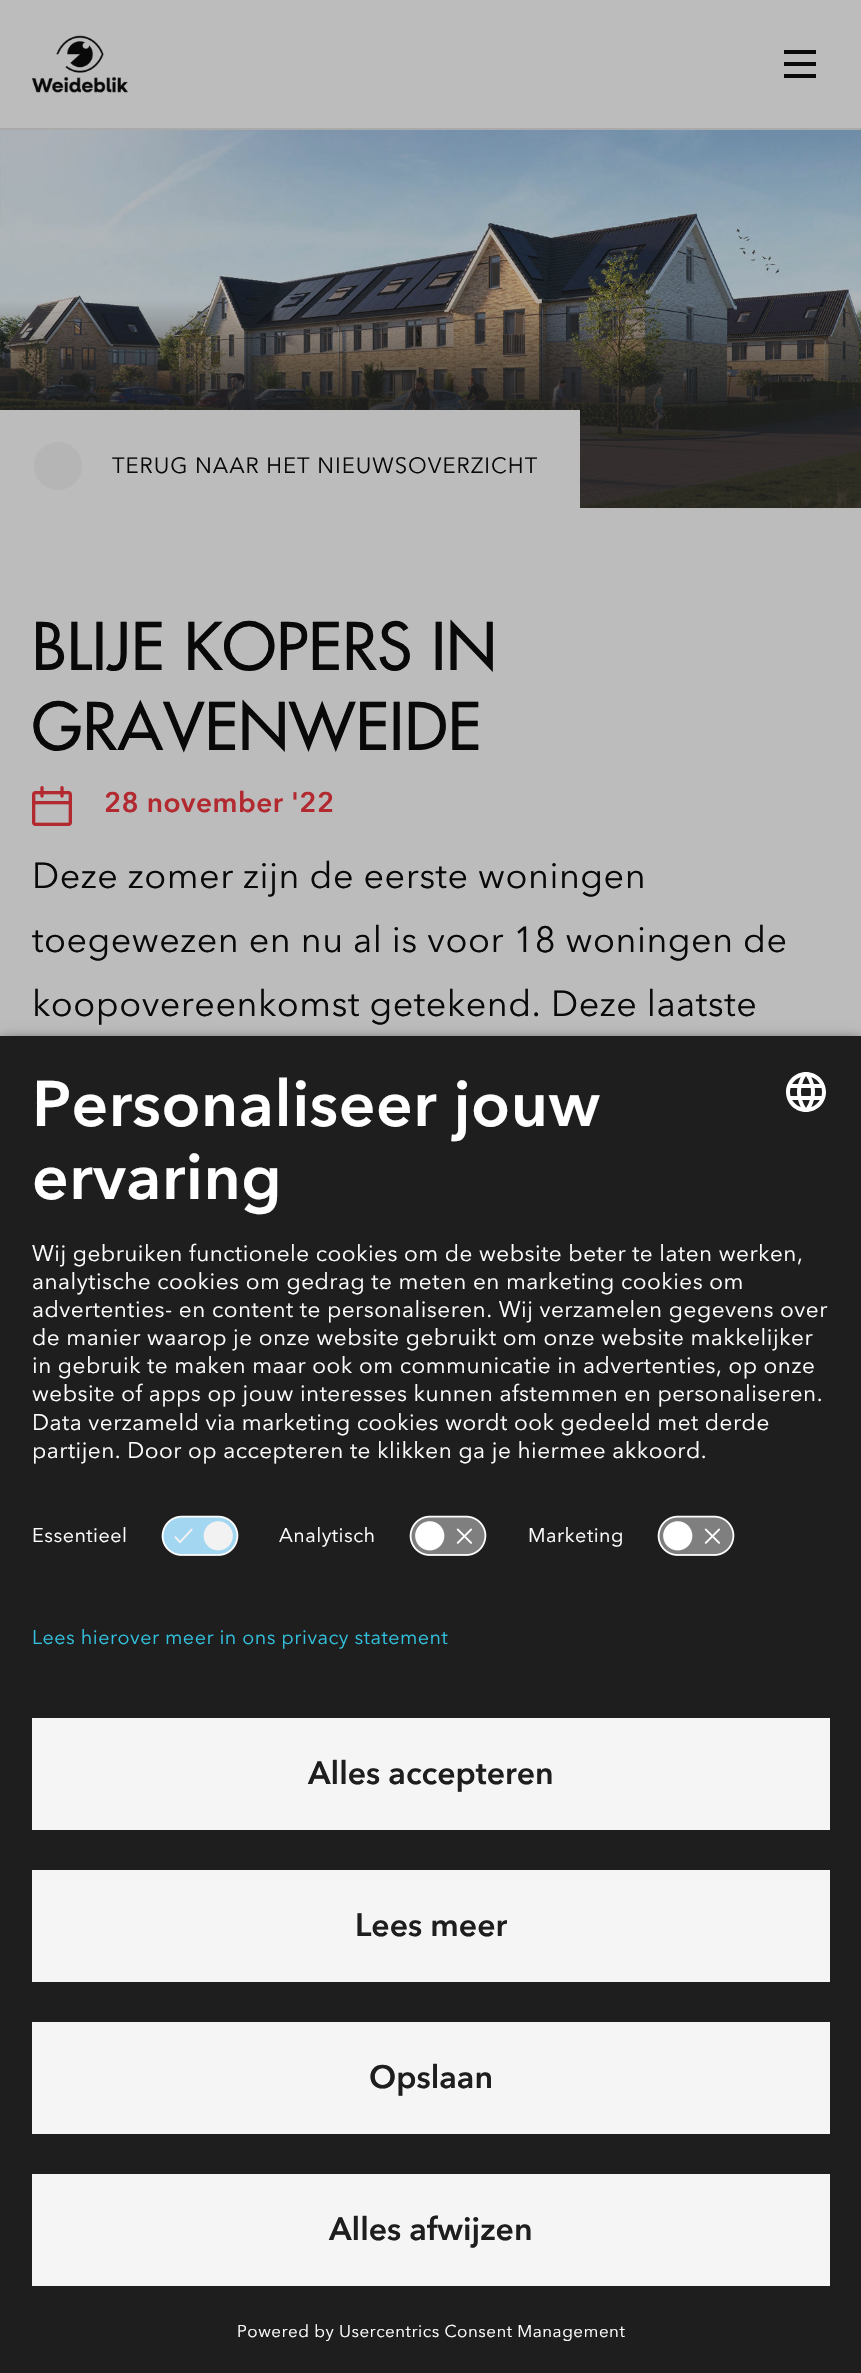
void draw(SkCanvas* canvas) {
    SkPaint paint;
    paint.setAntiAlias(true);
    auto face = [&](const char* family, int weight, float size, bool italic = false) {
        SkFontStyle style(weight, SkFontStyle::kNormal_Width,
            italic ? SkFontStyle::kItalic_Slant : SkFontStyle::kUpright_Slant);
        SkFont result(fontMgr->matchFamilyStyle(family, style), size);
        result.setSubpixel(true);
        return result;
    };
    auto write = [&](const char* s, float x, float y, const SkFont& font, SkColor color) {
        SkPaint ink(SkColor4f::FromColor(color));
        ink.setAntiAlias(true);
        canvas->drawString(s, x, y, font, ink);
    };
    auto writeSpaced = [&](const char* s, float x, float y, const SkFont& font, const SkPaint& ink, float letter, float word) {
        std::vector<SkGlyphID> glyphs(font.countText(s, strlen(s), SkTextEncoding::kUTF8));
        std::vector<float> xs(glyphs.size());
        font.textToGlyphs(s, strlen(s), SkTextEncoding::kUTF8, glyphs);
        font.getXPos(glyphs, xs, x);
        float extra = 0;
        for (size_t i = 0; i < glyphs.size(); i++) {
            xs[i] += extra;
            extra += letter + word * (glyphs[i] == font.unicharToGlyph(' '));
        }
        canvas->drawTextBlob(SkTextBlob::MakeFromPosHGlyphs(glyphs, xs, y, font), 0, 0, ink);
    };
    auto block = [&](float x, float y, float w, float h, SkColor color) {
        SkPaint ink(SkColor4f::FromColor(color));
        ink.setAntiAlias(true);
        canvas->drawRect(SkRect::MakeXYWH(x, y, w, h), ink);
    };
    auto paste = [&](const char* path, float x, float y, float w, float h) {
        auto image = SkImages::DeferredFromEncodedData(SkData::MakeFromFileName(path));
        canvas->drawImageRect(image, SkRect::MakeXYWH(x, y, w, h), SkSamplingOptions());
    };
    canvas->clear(SkColorSetRGB(188, 188, 188));
    block(0, 128, 861, 2, SkColorSetRGB(170, 170, 170));
    paste("pic1.png", 32, 35, 96, 58);
    block(784, 62, 32, 4, SkColorSetRGB(9, 9, 9));
    block(784, 50, 32, 4, SkColorSetRGB(9, 9, 9));
    block(784, 74, 32, 4, SkColorSetRGB(9, 9, 9));
    paste("pic2.png", 0, 130, 861, 378);
    block(0, 410, 580, 98, SkColorSetRGB(188, 188, 188));
    paint.setColor(SkColorSetRGB(181, 181, 181));
    canvas->drawCircle(58, 466, 24, paint);
    auto kFont1 = face("Avenir Next", 400, 22);
    paint.setColor(SkColorSetRGB(9, 9, 9));
    writeSpaced("TERUG NAAR HET NIEUWSOVERZICHT", 112, 473, kFont1, paint, 1, 0);
    auto kFont2 = face("Futura", 500, 64);
    writeSpaced("BLIJE KOPERS IN", 32, 670, kFont2, paint, 0.5f, 0);
    writeSpaced("GRAVENWEIDE", 32, 750, kFont2, paint, 0.5f, 0);
    paste("pic3.png", 32, 786, 40, 40);
    auto kFont3 = face("Avenir Next", 700, 28);
    paint.setColor(SkColorSetRGB(178, 41, 48));
    writeSpaced("28 november '22", 104, 812, kFont3, paint, 0.5f, 0);
    auto kFont4 = face("Avenir Next", 400, 36);
    paint.setColor(SkColorSetRGB(9, 9, 9));
    writeSpaced("Deze zomer zijn de eerste woningen", 32, 888, kFont4, paint, 0.5f, 0);
    writeSpaced("toegewezen en nu al is voor 18 woningen de", 32, 952, kFont4, paint, 0.5f, 0);
    writeSpaced("koopovereenkomst getekend. Deze laatste", 32, 1016, kFont4, paint, 0.5f, 0);
    paint.setColor(SkColorSetARGB(204, 0, 0, 0));
    paint.setMaskFilter(SkMaskFilter::MakeBlur(kNormal_SkBlurStyle, 7));
    canvas->drawRect(SkRect::MakeXYWH(0, 1042, 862, 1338), paint);
    paint.setMaskFilter(nullptr);
    block(0, 1036, 861, 1337, SkColorSetRGB(30, 30, 30));
    auto kFont5 = face("Avenir Next", 700, 64);
    paint.setColor(SK_ColorWHITE);
    writeSpaced("Personaliseer jouw", 32, 1126, kFont5, paint, 0.5f, 0);
    writeSpaced("ervaring", 32, 1199, kFont5, paint, 0.5f, 0);
    paste("pic4.png", 786, 1072, 40, 40);
    auto kFont6 = face("Avenir Next", 400, 22.5f);
    writeSpaced("Wij gebruiken functionele cookies om de website beter te laten werken,", 32, 1261, kFont6, paint, 0.5f, 0);
    writeSpaced("analytische cookies om gedrag te meten en marketing cookies om", 32, 1289, kFont6, paint, 0.5f, 0);
    writeSpaced("advertenties- en content te personaliseren. Wij verzamelen gegevens over", 32, 1317, kFont6, paint, 0.5f, 0);
    writeSpaced("de manier waarop je onze website gebruikt om onze website makkelijker", 32, 1345, kFont6, paint, 0.5f, 0);
    writeSpaced("in gebruik te maken maar ook om communicatie in advertenties, op onze", 32, 1373, kFont6, paint, 0.5f, 0);
    writeSpaced("website of apps op jouw interesses kunnen afstemmen en personaliseren.", 32, 1401, kFont6, paint, 0.5f, 0);
    writeSpaced("Data verzameld via marketing cookies wordt ook gedeeld met derde", 32, 1430, kFont6, paint, 0.5f, 0);
    writeSpaced("partijen. Door op accepteren te klikken ga je hiermee akkoord.", 32, 1458, kFont6, paint, 0.5f, 0);
    auto kFont7 = face("Avenir Next", 400, 19.7f);
    writeSpaced("Essentieel", 32, 1542, kFont7, paint, 0.5f, 0);
    paste("pic5.png", 161, 1515, 78, 41);
    writeSpaced("Analytisch", 279, 1542, kFont7, paint, 0.5f, 0);
    paste("pic6.png", 409, 1515, 78, 41);
    writeSpaced("Marketing", 528, 1542, kFont7, paint, 0.5f, 0);
    paste("pic6.png", 657, 1515, 78, 41);
    paint.setColor(SkColorSetRGB(50, 193, 222));
    writeSpaced("Lees hierover meer in ons privacy statement", 32, 1644, kFont7, paint, 0.5f, 0);
    block(32, 1718, 798, 112, SkColorSetRGB(245, 245, 245));
    auto kFont8 = face("Avenir Next", 700, 32);
    write("Alles accepteren", 308, 1784, kFont8, SkColorSetRGB(30, 30, 30));
    block(32, 1870, 798, 112, SkColorSetRGB(245, 245, 245));
    write("Lees meer", 355, 1936, kFont8, SkColorSetRGB(30, 30, 30));
    block(32, 2022, 798, 112, SkColorSetRGB(245, 245, 245));
    write("Opslaan", 369, 2088, kFont8, SkColorSetRGB(30, 30, 30));
    block(32, 2174, 798, 112, SkColorSetRGB(245, 245, 245));
    write("Alles afwijzen", 329, 2240, kFont8, SkColorSetRGB(30, 30, 30));
    auto kFont9 = face("Avenir Next", 400, 16.9f);
    paint.setColor(SK_ColorWHITE);
    writeSpaced("Powered by Usercentrics Consent Management", 237, 2337, kFont9, paint, 0.5f, 0);
}
